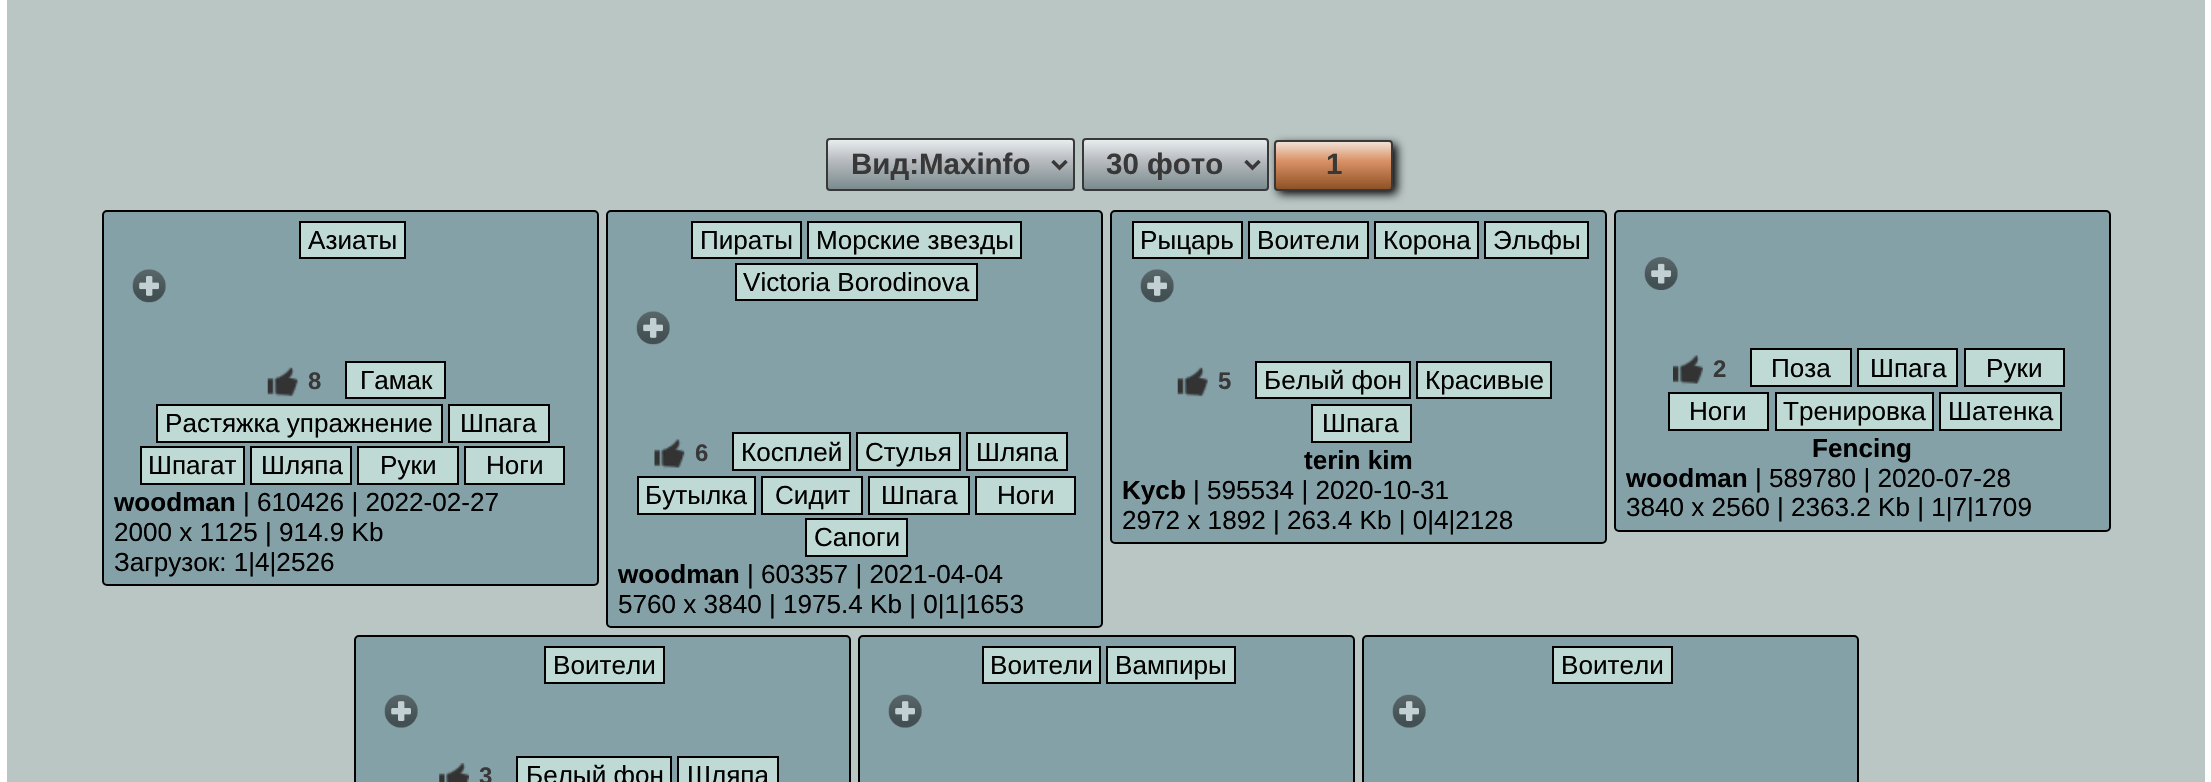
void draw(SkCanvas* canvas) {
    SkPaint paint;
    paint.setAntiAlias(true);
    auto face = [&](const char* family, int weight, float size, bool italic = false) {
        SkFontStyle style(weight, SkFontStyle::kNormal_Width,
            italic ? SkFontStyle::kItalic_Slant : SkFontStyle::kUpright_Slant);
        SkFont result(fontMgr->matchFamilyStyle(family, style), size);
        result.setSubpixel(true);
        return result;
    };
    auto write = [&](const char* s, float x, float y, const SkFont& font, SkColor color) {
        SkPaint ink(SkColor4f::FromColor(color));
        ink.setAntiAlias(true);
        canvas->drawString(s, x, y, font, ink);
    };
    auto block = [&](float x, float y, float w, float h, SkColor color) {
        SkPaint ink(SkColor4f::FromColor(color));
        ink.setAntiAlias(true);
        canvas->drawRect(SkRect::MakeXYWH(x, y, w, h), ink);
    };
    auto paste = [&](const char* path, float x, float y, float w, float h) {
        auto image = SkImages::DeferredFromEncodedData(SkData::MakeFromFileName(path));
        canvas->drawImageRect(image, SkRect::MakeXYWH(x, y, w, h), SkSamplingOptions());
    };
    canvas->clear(SK_ColorWHITE);
    block(7, 0, 2198, 782, SkColorSetRGB(185, 198, 195));
    canvas->save();
    canvas->clipPath(SkPathBuilder().moveTo(830, 138).lineTo(1071, 138).cubicTo(1073, 138, 1075, 140, 1075, 142).lineTo(1075, 187).cubicTo(1075, 189, 1073, 191, 1071, 191).lineTo(830, 191).cubicTo(828, 191, 826, 189, 826, 187).lineTo(826, 142).cubicTo(826, 140, 828, 138, 830, 138).close().detach(), true);
    {
        const SkColor colors[] = {SkColorSetRGB(122, 139, 142), SkColorSetRGB(185, 189, 193), SkColorSetRGB(231, 236, 239)};
        const float stops[] = {0, 0.6f, 1};
        const SkPoint ends[] = {{950, 189}, {950, 140}};
        paint.setShader(SkGradientShader::MakeLinear(ends, colors, stops, 3, SkTileMode::kClamp));
        paint.setAlpha(255);
    }
    canvas->drawRect(SkRect::MakeXYWH(826, 140, 249, 49), paint);
    canvas->restore();
    paint.setStyle(SkPaint::kStroke_Style);
    paint.setStrokeWidth(2);
    paint.setShader(nullptr);
    paint.setColor(SkColorSetRGB(56, 56, 56));
    canvas->drawRoundRect(SkRect::MakeXYWH(827, 139, 247, 51), 3, 3, paint);
    paint.setStrokeWidth(3.5f);
    canvas->drawPath(SkPathBuilder().moveTo(1052.5f, 161).lineTo(1059.5f, 168).lineTo(1066.5f, 161).detach(), paint);
    auto kFont1 = face("Liberation Sans", 700, 29.5f);
    write("Вид:Maxinfo", 851, 174, kFont1, SkColorSetRGB(56, 56, 56));
    canvas->save();
    canvas->clipPath(SkPathBuilder().moveTo(1086, 138).lineTo(1265, 138).cubicTo(1267, 138, 1269, 140, 1269, 142).lineTo(1269, 187).cubicTo(1269, 189, 1267, 191, 1265, 191).lineTo(1086, 191).cubicTo(1084, 191, 1082, 189, 1082, 187).lineTo(1082, 142).cubicTo(1082, 140, 1084, 138, 1086, 138).close().detach(), true);
    paint.setStyle(SkPaint::kFill_Style);
    {
        const SkColor colors[] = {SkColorSetRGB(122, 139, 142), SkColorSetRGB(185, 189, 193), SkColorSetRGB(231, 236, 239)};
        const float stops[] = {0, 0.6f, 1};
        const SkPoint ends[] = {{1175, 189}, {1175, 140}};
        paint.setShader(SkGradientShader::MakeLinear(ends, colors, stops, 3, SkTileMode::kClamp));
        paint.setAlpha(255);
    }
    canvas->drawRect(SkRect::MakeXYWH(1082, 140, 187, 49), paint);
    canvas->restore();
    paint.setStyle(SkPaint::kStroke_Style);
    paint.setStrokeWidth(2);
    paint.setShader(nullptr);
    paint.setColor(SkColorSetRGB(56, 56, 56));
    canvas->drawRoundRect(SkRect::MakeXYWH(1083, 139, 185, 51), 3, 3, paint);
    paint.setStrokeWidth(3.5f);
    canvas->drawPath(SkPathBuilder().moveTo(1245.5f, 161).lineTo(1252.5f, 168).lineTo(1259.5f, 161).detach(), paint);
    write("30 фото", 1106, 174, kFont1, SkColorSetRGB(56, 56, 56));
    paint.setStyle(SkPaint::kFill_Style);
    paint.setColor(SK_ColorBLACK);
    paint.setMaskFilter(SkMaskFilter::MakeBlur(kNormal_SkBlurStyle, 5));
    canvas->drawRoundRect(SkRect::MakeXYWH(1278, 144, 119, 50), 4, 4, paint);
    paint.setMaskFilter(nullptr);
    canvas->save();
    canvas->clipPath(SkPathBuilder().moveTo(1278, 140).lineTo(1389, 140).cubicTo(1391, 140, 1393, 142, 1393, 144).lineTo(1393, 187).cubicTo(1393, 189, 1391, 191, 1389, 191).lineTo(1278, 191).cubicTo(1276, 191, 1274, 189, 1274, 187).lineTo(1274, 144).cubicTo(1274, 142, 1276, 140, 1278, 140).close().detach(), true);
    {
        const SkColor colors[] = {SkColorSetRGB(142, 82, 38), SkColorSetRGB(218, 146, 102), SkColorSetRGB(240, 224, 213)};
        const float stops[] = {0, 0.6f, 1};
        const SkPoint ends[] = {{1334, 189}, {1334, 142}};
        paint.setShader(SkGradientShader::MakeLinear(ends, colors, stops, 3, SkTileMode::kClamp));
        paint.setAlpha(255);
    }
    canvas->drawRect(SkRect::MakeXYWH(1274, 142, 119, 47), paint);
    canvas->restore();
    paint.setStyle(SkPaint::kStroke_Style);
    paint.setStrokeWidth(2);
    paint.setShader(nullptr);
    paint.setColor(SkColorSetRGB(56, 56, 56));
    canvas->drawRoundRect(SkRect::MakeXYWH(1275, 141, 117, 49), 3, 3, paint);
    write("1", 1326, 174, kFont1, SkColorSetRGB(56, 56, 56));
    paint.setStyle(SkPaint::kFill_Style);
    paint.setColor(SkColorSetRGB(133, 161, 168));
    canvas->drawRoundRect(SkRect::MakeXYWH(103, 211, 495, 374), 4, 4, paint);
    paint.setStyle(SkPaint::kStroke_Style);
    paint.setColor(SK_ColorBLACK);
    canvas->drawRoundRect(SkRect::MakeXYWH(103, 211, 495, 374), 4, 4, paint);
    paint.setStyle(SkPaint::kFill_Style);
    paint.setColor(SkColorSetRGB(191, 218, 212));
    canvas->drawRect(SkRect::MakeXYWH(300, 222, 105, 36), paint);
    paint.setStyle(SkPaint::kStroke_Style);
    paint.setColor(SK_ColorBLACK);
    canvas->drawRect(SkRect::MakeXYWH(300, 222, 105, 36), paint);
    auto kFont2 = face("Liberation Sans", 400, 26.1f);
    write("Азиаты", 308, 249, kFont2, SK_ColorBLACK);
    paste("pic1.png", 132, 269, 34, 34);
    paste("pic2.png", 267, 367, 31, 30);
    auto kFont3 = face("Liberation Sans", 700, 24);
    write("8", 308, 389, kFont3, SkColorSetRGB(56, 56, 56));
    paint.setStyle(SkPaint::kFill_Style);
    paint.setColor(SkColorSetRGB(191, 218, 212));
    canvas->drawRect(SkRect::MakeXYWH(346, 362, 99, 36), paint);
    paint.setStyle(SkPaint::kStroke_Style);
    paint.setColor(SK_ColorBLACK);
    canvas->drawRect(SkRect::MakeXYWH(346, 362, 99, 36), paint);
    write("Гамак", 360, 389, kFont2, SK_ColorBLACK);
    paint.setStyle(SkPaint::kFill_Style);
    paint.setColor(SkColorSetRGB(191, 218, 212));
    canvas->drawRect(SkRect::MakeXYWH(157, 405, 285, 37), paint);
    paint.setStyle(SkPaint::kStroke_Style);
    paint.setColor(SK_ColorBLACK);
    canvas->drawRect(SkRect::MakeXYWH(157, 405, 285, 37), paint);
    write("Растяжка упражнение", 165, 432, kFont2, SK_ColorBLACK);
    paint.setStyle(SkPaint::kFill_Style);
    paint.setColor(SkColorSetRGB(191, 218, 212));
    canvas->drawRect(SkRect::MakeXYWH(449, 405, 100, 37), paint);
    paint.setStyle(SkPaint::kStroke_Style);
    paint.setColor(SK_ColorBLACK);
    canvas->drawRect(SkRect::MakeXYWH(449, 405, 100, 37), paint);
    write("Шпага", 460, 432, kFont2, SK_ColorBLACK);
    paint.setStyle(SkPaint::kFill_Style);
    paint.setColor(SkColorSetRGB(191, 218, 212));
    canvas->drawRect(SkRect::MakeXYWH(141, 447, 103, 37), paint);
    paint.setStyle(SkPaint::kStroke_Style);
    paint.setColor(SK_ColorBLACK);
    canvas->drawRect(SkRect::MakeXYWH(141, 447, 103, 37), paint);
    write("Шпагат", 148, 474, kFont2, SK_ColorBLACK);
    paint.setStyle(SkPaint::kFill_Style);
    paint.setColor(SkColorSetRGB(191, 218, 212));
    canvas->drawRect(SkRect::MakeXYWH(251, 447, 100, 37), paint);
    paint.setStyle(SkPaint::kStroke_Style);
    paint.setColor(SK_ColorBLACK);
    canvas->drawRect(SkRect::MakeXYWH(251, 447, 100, 37), paint);
    write("Шляпа", 261, 474, kFont2, SK_ColorBLACK);
    paint.setStyle(SkPaint::kFill_Style);
    paint.setColor(SkColorSetRGB(191, 218, 212));
    canvas->drawRect(SkRect::MakeXYWH(358, 447, 100, 37), paint);
    paint.setStyle(SkPaint::kStroke_Style);
    paint.setColor(SK_ColorBLACK);
    canvas->drawRect(SkRect::MakeXYWH(358, 447, 100, 37), paint);
    write("Руки", 380, 474, kFont2, SK_ColorBLACK);
    paint.setStyle(SkPaint::kFill_Style);
    paint.setColor(SkColorSetRGB(191, 218, 212));
    canvas->drawRect(SkRect::MakeXYWH(465, 447, 99, 37), paint);
    paint.setStyle(SkPaint::kStroke_Style);
    paint.setColor(SK_ColorBLACK);
    canvas->drawRect(SkRect::MakeXYWH(465, 447, 99, 37), paint);
    write("Ноги", 486, 474, kFont2, SK_ColorBLACK);
    auto kFont4 = face("Liberation Sans", 700, 26.1f);
    write("woodman", 114, 511, kFont4, SK_ColorBLACK);
    write("| 610426 | 2022-02-27", 243, 511, kFont2, SK_ColorBLACK);
    write("2000 x 1125 | 914.9 Kb", 114, 541, kFont2, SK_ColorBLACK);
    write("Загрузок: 1|4|2526", 114, 571, kFont2, SK_ColorBLACK);
    paint.setStyle(SkPaint::kFill_Style);
    paint.setColor(SkColorSetRGB(133, 161, 168));
    canvas->drawRoundRect(SkRect::MakeXYWH(607, 211, 495, 416), 4, 4, paint);
    paint.setStyle(SkPaint::kStroke_Style);
    paint.setColor(SK_ColorBLACK);
    canvas->drawRoundRect(SkRect::MakeXYWH(607, 211, 495, 416), 4, 4, paint);
    paint.setStyle(SkPaint::kFill_Style);
    paint.setColor(SkColorSetRGB(191, 218, 212));
    canvas->drawRect(SkRect::MakeXYWH(692, 222, 109, 36), paint);
    paint.setStyle(SkPaint::kStroke_Style);
    paint.setColor(SK_ColorBLACK);
    canvas->drawRect(SkRect::MakeXYWH(692, 222, 109, 36), paint);
    write("Пираты", 700, 249, kFont2, SK_ColorBLACK);
    paint.setStyle(SkPaint::kFill_Style);
    paint.setColor(SkColorSetRGB(191, 218, 212));
    canvas->drawRect(SkRect::MakeXYWH(808, 222, 213, 36), paint);
    paint.setStyle(SkPaint::kStroke_Style);
    paint.setColor(SK_ColorBLACK);
    canvas->drawRect(SkRect::MakeXYWH(808, 222, 213, 36), paint);
    write("Морские звезды", 816, 249, kFont2, SK_ColorBLACK);
    paint.setStyle(SkPaint::kFill_Style);
    paint.setColor(SkColorSetRGB(191, 218, 212));
    canvas->drawRect(SkRect::MakeXYWH(736, 264, 241, 36), paint);
    paint.setStyle(SkPaint::kStroke_Style);
    paint.setColor(SK_ColorBLACK);
    canvas->drawRect(SkRect::MakeXYWH(736, 264, 241, 36), paint);
    write("Victoria Borodinova", 743, 291, kFont2, SK_ColorBLACK);
    paste("pic3.png", 636, 311, 34, 34);
    paste("pic4.png", 654, 439, 31, 30);
    write("6", 695, 461, kFont3, SkColorSetRGB(56, 56, 56));
    paint.setStyle(SkPaint::kFill_Style);
    paint.setColor(SkColorSetRGB(191, 218, 212));
    canvas->drawRect(SkRect::MakeXYWH(733, 433, 117, 37), paint);
    paint.setStyle(SkPaint::kStroke_Style);
    paint.setColor(SK_ColorBLACK);
    canvas->drawRect(SkRect::MakeXYWH(733, 433, 117, 37), paint);
    write("Косплей", 741, 461, kFont2, SK_ColorBLACK);
    paint.setStyle(SkPaint::kFill_Style);
    paint.setColor(SkColorSetRGB(191, 218, 212));
    canvas->drawRect(SkRect::MakeXYWH(857, 433, 103, 37), paint);
    paint.setStyle(SkPaint::kStroke_Style);
    paint.setColor(SK_ColorBLACK);
    canvas->drawRect(SkRect::MakeXYWH(857, 433, 103, 37), paint);
    write("Стулья", 865, 461, kFont2, SK_ColorBLACK);
    paint.setStyle(SkPaint::kFill_Style);
    paint.setColor(SkColorSetRGB(191, 218, 212));
    canvas->drawRect(SkRect::MakeXYWH(967, 433, 100, 37), paint);
    paint.setStyle(SkPaint::kStroke_Style);
    paint.setColor(SK_ColorBLACK);
    canvas->drawRect(SkRect::MakeXYWH(967, 433, 100, 37), paint);
    write("Шляпа", 976, 461, kFont2, SK_ColorBLACK);
    paint.setStyle(SkPaint::kFill_Style);
    paint.setColor(SkColorSetRGB(191, 218, 212));
    canvas->drawRect(SkRect::MakeXYWH(638, 477, 117, 37), paint);
    paint.setStyle(SkPaint::kStroke_Style);
    paint.setColor(SK_ColorBLACK);
    canvas->drawRect(SkRect::MakeXYWH(638, 477, 117, 37), paint);
    write("Бутылка", 645, 504, kFont2, SK_ColorBLACK);
    paint.setStyle(SkPaint::kFill_Style);
    paint.setColor(SkColorSetRGB(191, 218, 212));
    canvas->drawRect(SkRect::MakeXYWH(762, 477, 100, 37), paint);
    paint.setStyle(SkPaint::kStroke_Style);
    paint.setColor(SK_ColorBLACK);
    canvas->drawRect(SkRect::MakeXYWH(762, 477, 100, 37), paint);
    write("Сидит", 775, 504, kFont2, SK_ColorBLACK);
    paint.setStyle(SkPaint::kFill_Style);
    paint.setColor(SkColorSetRGB(191, 218, 212));
    canvas->drawRect(SkRect::MakeXYWH(869, 477, 100, 37), paint);
    paint.setStyle(SkPaint::kStroke_Style);
    paint.setColor(SK_ColorBLACK);
    canvas->drawRect(SkRect::MakeXYWH(869, 477, 100, 37), paint);
    write("Шпага", 881, 504, kFont2, SK_ColorBLACK);
    paint.setStyle(SkPaint::kFill_Style);
    paint.setColor(SkColorSetRGB(191, 218, 212));
    canvas->drawRect(SkRect::MakeXYWH(976, 477, 99, 37), paint);
    paint.setStyle(SkPaint::kStroke_Style);
    paint.setColor(SK_ColorBLACK);
    canvas->drawRect(SkRect::MakeXYWH(976, 477, 99, 37), paint);
    write("Ноги", 997, 504, kFont2, SK_ColorBLACK);
    paint.setStyle(SkPaint::kFill_Style);
    paint.setColor(SkColorSetRGB(191, 218, 212));
    canvas->drawRect(SkRect::MakeXYWH(806, 519, 101, 37), paint);
    paint.setStyle(SkPaint::kStroke_Style);
    paint.setColor(SK_ColorBLACK);
    canvas->drawRect(SkRect::MakeXYWH(806, 519, 101, 37), paint);
    write("Сапоги", 814, 546, kFont2, SK_ColorBLACK);
    write("woodman", 618, 583, kFont4, SK_ColorBLACK);
    write("| 603357 | 2021-04-04", 747, 583, kFont2, SK_ColorBLACK);
    write("5760 x 3840 | 1975.4 Kb | 0|1|1653", 618, 613, kFont2, SK_ColorBLACK);
    paint.setStyle(SkPaint::kFill_Style);
    paint.setColor(SkColorSetRGB(133, 161, 168));
    canvas->drawRoundRect(SkRect::MakeXYWH(1111, 211, 495, 332), 4, 4, paint);
    paint.setStyle(SkPaint::kStroke_Style);
    paint.setColor(SK_ColorBLACK);
    canvas->drawRoundRect(SkRect::MakeXYWH(1111, 211, 495, 332), 4, 4, paint);
    paint.setStyle(SkPaint::kFill_Style);
    paint.setColor(SkColorSetRGB(191, 218, 212));
    canvas->drawRect(SkRect::MakeXYWH(1133, 222, 109, 36), paint);
    paint.setStyle(SkPaint::kStroke_Style);
    paint.setColor(SK_ColorBLACK);
    canvas->drawRect(SkRect::MakeXYWH(1133, 222, 109, 36), paint);
    write("Рыцарь", 1140, 249, kFont2, SK_ColorBLACK);
    paint.setStyle(SkPaint::kFill_Style);
    paint.setColor(SkColorSetRGB(191, 218, 212));
    canvas->drawRect(SkRect::MakeXYWH(1249, 222, 119, 36), paint);
    paint.setStyle(SkPaint::kStroke_Style);
    paint.setColor(SK_ColorBLACK);
    canvas->drawRect(SkRect::MakeXYWH(1249, 222, 119, 36), paint);
    write("Воители", 1257, 249, kFont2, SK_ColorBLACK);
    paint.setStyle(SkPaint::kFill_Style);
    paint.setColor(SkColorSetRGB(191, 218, 212));
    canvas->drawRect(SkRect::MakeXYWH(1375, 222, 103, 36), paint);
    paint.setStyle(SkPaint::kStroke_Style);
    paint.setColor(SK_ColorBLACK);
    canvas->drawRect(SkRect::MakeXYWH(1375, 222, 103, 36), paint);
    write("Корона", 1383, 249, kFont2, SK_ColorBLACK);
    paint.setStyle(SkPaint::kFill_Style);
    paint.setColor(SkColorSetRGB(191, 218, 212));
    canvas->drawRect(SkRect::MakeXYWH(1485, 222, 103, 36), paint);
    paint.setStyle(SkPaint::kStroke_Style);
    paint.setColor(SK_ColorBLACK);
    canvas->drawRect(SkRect::MakeXYWH(1485, 222, 103, 36), paint);
    write("Эльфы", 1493, 249, kFont2, SK_ColorBLACK);
    paste("pic3.png", 1140, 269, 34, 34);
    paste("pic2.png", 1177, 367, 31, 30);
    write("5", 1218, 389, kFont3, SkColorSetRGB(56, 56, 56));
    paint.setStyle(SkPaint::kFill_Style);
    paint.setColor(SkColorSetRGB(191, 218, 212));
    canvas->drawRect(SkRect::MakeXYWH(1256, 362, 154, 36), paint);
    paint.setStyle(SkPaint::kStroke_Style);
    paint.setColor(SK_ColorBLACK);
    canvas->drawRect(SkRect::MakeXYWH(1256, 362, 154, 36), paint);
    write("Белый фон", 1264, 389, kFont2, SK_ColorBLACK);
    paint.setStyle(SkPaint::kFill_Style);
    paint.setColor(SkColorSetRGB(191, 218, 212));
    canvas->drawRect(SkRect::MakeXYWH(1417, 362, 134, 36), paint);
    paint.setStyle(SkPaint::kStroke_Style);
    paint.setColor(SK_ColorBLACK);
    canvas->drawRect(SkRect::MakeXYWH(1417, 362, 134, 36), paint);
    write("Красивые", 1425, 389, kFont2, SK_ColorBLACK);
    paint.setStyle(SkPaint::kFill_Style);
    paint.setColor(SkColorSetRGB(191, 218, 212));
    canvas->drawRect(SkRect::MakeXYWH(1312, 405, 99, 37), paint);
    paint.setStyle(SkPaint::kStroke_Style);
    paint.setColor(SK_ColorBLACK);
    canvas->drawRect(SkRect::MakeXYWH(1312, 405, 99, 37), paint);
    write("Шпага", 1322, 432, kFont2, SK_ColorBLACK);
    write("terin kim", 1304, 469, kFont4, SK_ColorBLACK);
    write("Kycb", 1122, 499, kFont4, SK_ColorBLACK);
    write("| 595534 | 2020-10-31", 1193, 499, kFont2, SK_ColorBLACK);
    write("2972 x 1892 | 263.4 Kb | 0|4|2128", 1122, 529, kFont2, SK_ColorBLACK);
    paint.setStyle(SkPaint::kFill_Style);
    paint.setColor(SkColorSetRGB(133, 161, 168));
    canvas->drawRoundRect(SkRect::MakeXYWH(1615, 211, 495, 320), 4, 4, paint);
    paint.setStyle(SkPaint::kStroke_Style);
    paint.setColor(SK_ColorBLACK);
    canvas->drawRoundRect(SkRect::MakeXYWH(1615, 211, 495, 320), 4, 4, paint);
    paste("pic5.png", 1644, 257, 34, 33);
    paste("pic6.png", 1673, 355, 30, 30);
    write("2", 1713, 377, kFont3, SkColorSetRGB(56, 56, 56));
    paint.setStyle(SkPaint::kFill_Style);
    paint.setColor(SkColorSetRGB(191, 218, 212));
    canvas->drawRect(SkRect::MakeXYWH(1751, 349, 100, 37), paint);
    paint.setStyle(SkPaint::kStroke_Style);
    paint.setColor(SK_ColorBLACK);
    canvas->drawRect(SkRect::MakeXYWH(1751, 349, 100, 37), paint);
    write("Поза", 1771, 377, kFont2, SK_ColorBLACK);
    paint.setStyle(SkPaint::kFill_Style);
    paint.setColor(SkColorSetRGB(191, 218, 212));
    canvas->drawRect(SkRect::MakeXYWH(1858, 349, 99, 37), paint);
    paint.setStyle(SkPaint::kStroke_Style);
    paint.setColor(SK_ColorBLACK);
    canvas->drawRect(SkRect::MakeXYWH(1858, 349, 99, 37), paint);
    write("Шпага", 1870, 377, kFont2, SK_ColorBLACK);
    paint.setStyle(SkPaint::kFill_Style);
    paint.setColor(SkColorSetRGB(191, 218, 212));
    canvas->drawRect(SkRect::MakeXYWH(1965, 349, 99, 37), paint);
    paint.setStyle(SkPaint::kStroke_Style);
    paint.setColor(SK_ColorBLACK);
    canvas->drawRect(SkRect::MakeXYWH(1965, 349, 99, 37), paint);
    write("Руки", 1986, 377, kFont2, SK_ColorBLACK);
    paint.setStyle(SkPaint::kFill_Style);
    paint.setColor(SkColorSetRGB(191, 218, 212));
    canvas->drawRect(SkRect::MakeXYWH(1669, 393, 99, 37), paint);
    paint.setStyle(SkPaint::kStroke_Style);
    paint.setColor(SK_ColorBLACK);
    canvas->drawRect(SkRect::MakeXYWH(1669, 393, 99, 37), paint);
    write("Ноги", 1689, 420, kFont2, SK_ColorBLACK);
    paint.setStyle(SkPaint::kFill_Style);
    paint.setColor(SkColorSetRGB(191, 218, 212));
    canvas->drawRect(SkRect::MakeXYWH(1776, 393, 157, 37), paint);
    paint.setStyle(SkPaint::kStroke_Style);
    paint.setColor(SK_ColorBLACK);
    canvas->drawRect(SkRect::MakeXYWH(1776, 393, 157, 37), paint);
    write("Тренировка", 1783, 420, kFont2, SK_ColorBLACK);
    paint.setStyle(SkPaint::kFill_Style);
    paint.setColor(SkColorSetRGB(191, 218, 212));
    canvas->drawRect(SkRect::MakeXYWH(1940, 393, 121, 37), paint);
    paint.setStyle(SkPaint::kStroke_Style);
    paint.setColor(SK_ColorBLACK);
    canvas->drawRect(SkRect::MakeXYWH(1940, 393, 121, 37), paint);
    write("Шатенка", 1948, 420, kFont2, SK_ColorBLACK);
    write("Fencing", 1812, 457, kFont4, SK_ColorBLACK);
    write("woodman", 1626, 487, kFont4, SK_ColorBLACK);
    write("| 589780 | 2020-07-28", 1755, 487, kFont2, SK_ColorBLACK);
    write("3840 x 2560 | 2363.2 Kb | 1|7|1709", 1626, 516, kFont2, SK_ColorBLACK);
    paint.setStyle(SkPaint::kFill_Style);
    paint.setColor(SkColorSetRGB(133, 161, 168));
    canvas->drawRoundRect(SkRect::MakeXYWH(355, 636, 495, 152), 4, 4, paint);
    paint.setStyle(SkPaint::kStroke_Style);
    paint.setColor(SK_ColorBLACK);
    canvas->drawRoundRect(SkRect::MakeXYWH(355, 636, 495, 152), 4, 4, paint);
    paint.setStyle(SkPaint::kFill_Style);
    paint.setColor(SkColorSetRGB(191, 218, 212));
    canvas->drawRect(SkRect::MakeXYWH(545, 647, 119, 36), paint);
    paint.setStyle(SkPaint::kStroke_Style);
    paint.setColor(SK_ColorBLACK);
    canvas->drawRect(SkRect::MakeXYWH(545, 647, 119, 36), paint);
    write("Воители", 553, 674, kFont2, SK_ColorBLACK);
    paste("pic7.png", 384, 694, 34, 34);
    paste("pic8.png", 439, 763, 30, 19);
    write("3", 479, 784, kFont3, SkColorSetRGB(56, 56, 56));
    paint.setStyle(SkPaint::kFill_Style);
    paint.setColor(SkColorSetRGB(191, 218, 212));
    canvas->drawRect(SkRect::MakeXYWH(517, 757, 154, 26), paint);
    paint.setStyle(SkPaint::kStroke_Style);
    paint.setColor(SK_ColorBLACK);
    canvas->drawRect(SkRect::MakeXYWH(517, 757, 154, 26), paint);
    write("Белый фон", 526, 784, kFont2, SK_ColorBLACK);
    paint.setStyle(SkPaint::kFill_Style);
    paint.setColor(SkColorSetRGB(191, 218, 212));
    canvas->drawRect(SkRect::MakeXYWH(678, 757, 100, 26), paint);
    paint.setStyle(SkPaint::kStroke_Style);
    paint.setColor(SK_ColorBLACK);
    canvas->drawRect(SkRect::MakeXYWH(678, 757, 100, 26), paint);
    write("Шляпа", 687, 784, kFont2, SK_ColorBLACK);
    paint.setStyle(SkPaint::kFill_Style);
    paint.setColor(SkColorSetRGB(133, 161, 168));
    canvas->drawRoundRect(SkRect::MakeXYWH(859, 636, 495, 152), 4, 4, paint);
    paint.setStyle(SkPaint::kStroke_Style);
    paint.setColor(SK_ColorBLACK);
    canvas->drawRoundRect(SkRect::MakeXYWH(859, 636, 495, 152), 4, 4, paint);
    paint.setStyle(SkPaint::kFill_Style);
    paint.setColor(SkColorSetRGB(191, 218, 212));
    canvas->drawRect(SkRect::MakeXYWH(983, 647, 117, 36), paint);
    paint.setStyle(SkPaint::kStroke_Style);
    paint.setColor(SK_ColorBLACK);
    canvas->drawRect(SkRect::MakeXYWH(983, 647, 117, 36), paint);
    write("Воители", 990, 674, kFont2, SK_ColorBLACK);
    paint.setStyle(SkPaint::kFill_Style);
    paint.setColor(SkColorSetRGB(191, 218, 212));
    canvas->drawRect(SkRect::MakeXYWH(1107, 647, 128, 36), paint);
    paint.setStyle(SkPaint::kStroke_Style);
    paint.setColor(SK_ColorBLACK);
    canvas->drawRect(SkRect::MakeXYWH(1107, 647, 128, 36), paint);
    write("Вампиры", 1115, 674, kFont2, SK_ColorBLACK);
    paste("pic9.png", 888, 694, 34, 34);
    paint.setStyle(SkPaint::kFill_Style);
    paint.setColor(SkColorSetRGB(133, 161, 168));
    canvas->drawRoundRect(SkRect::MakeXYWH(1363, 636, 495, 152), 4, 4, paint);
    paint.setStyle(SkPaint::kStroke_Style);
    paint.setColor(SK_ColorBLACK);
    canvas->drawRoundRect(SkRect::MakeXYWH(1363, 636, 495, 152), 4, 4, paint);
    paint.setStyle(SkPaint::kFill_Style);
    paint.setColor(SkColorSetRGB(191, 218, 212));
    canvas->drawRect(SkRect::MakeXYWH(1553, 647, 119, 36), paint);
    paint.setStyle(SkPaint::kStroke_Style);
    paint.setColor(SK_ColorBLACK);
    canvas->drawRect(SkRect::MakeXYWH(1553, 647, 119, 36), paint);
    write("Воители", 1561, 674, kFont2, SK_ColorBLACK);
    paste("pic9.png", 1392, 694, 34, 34);
}
